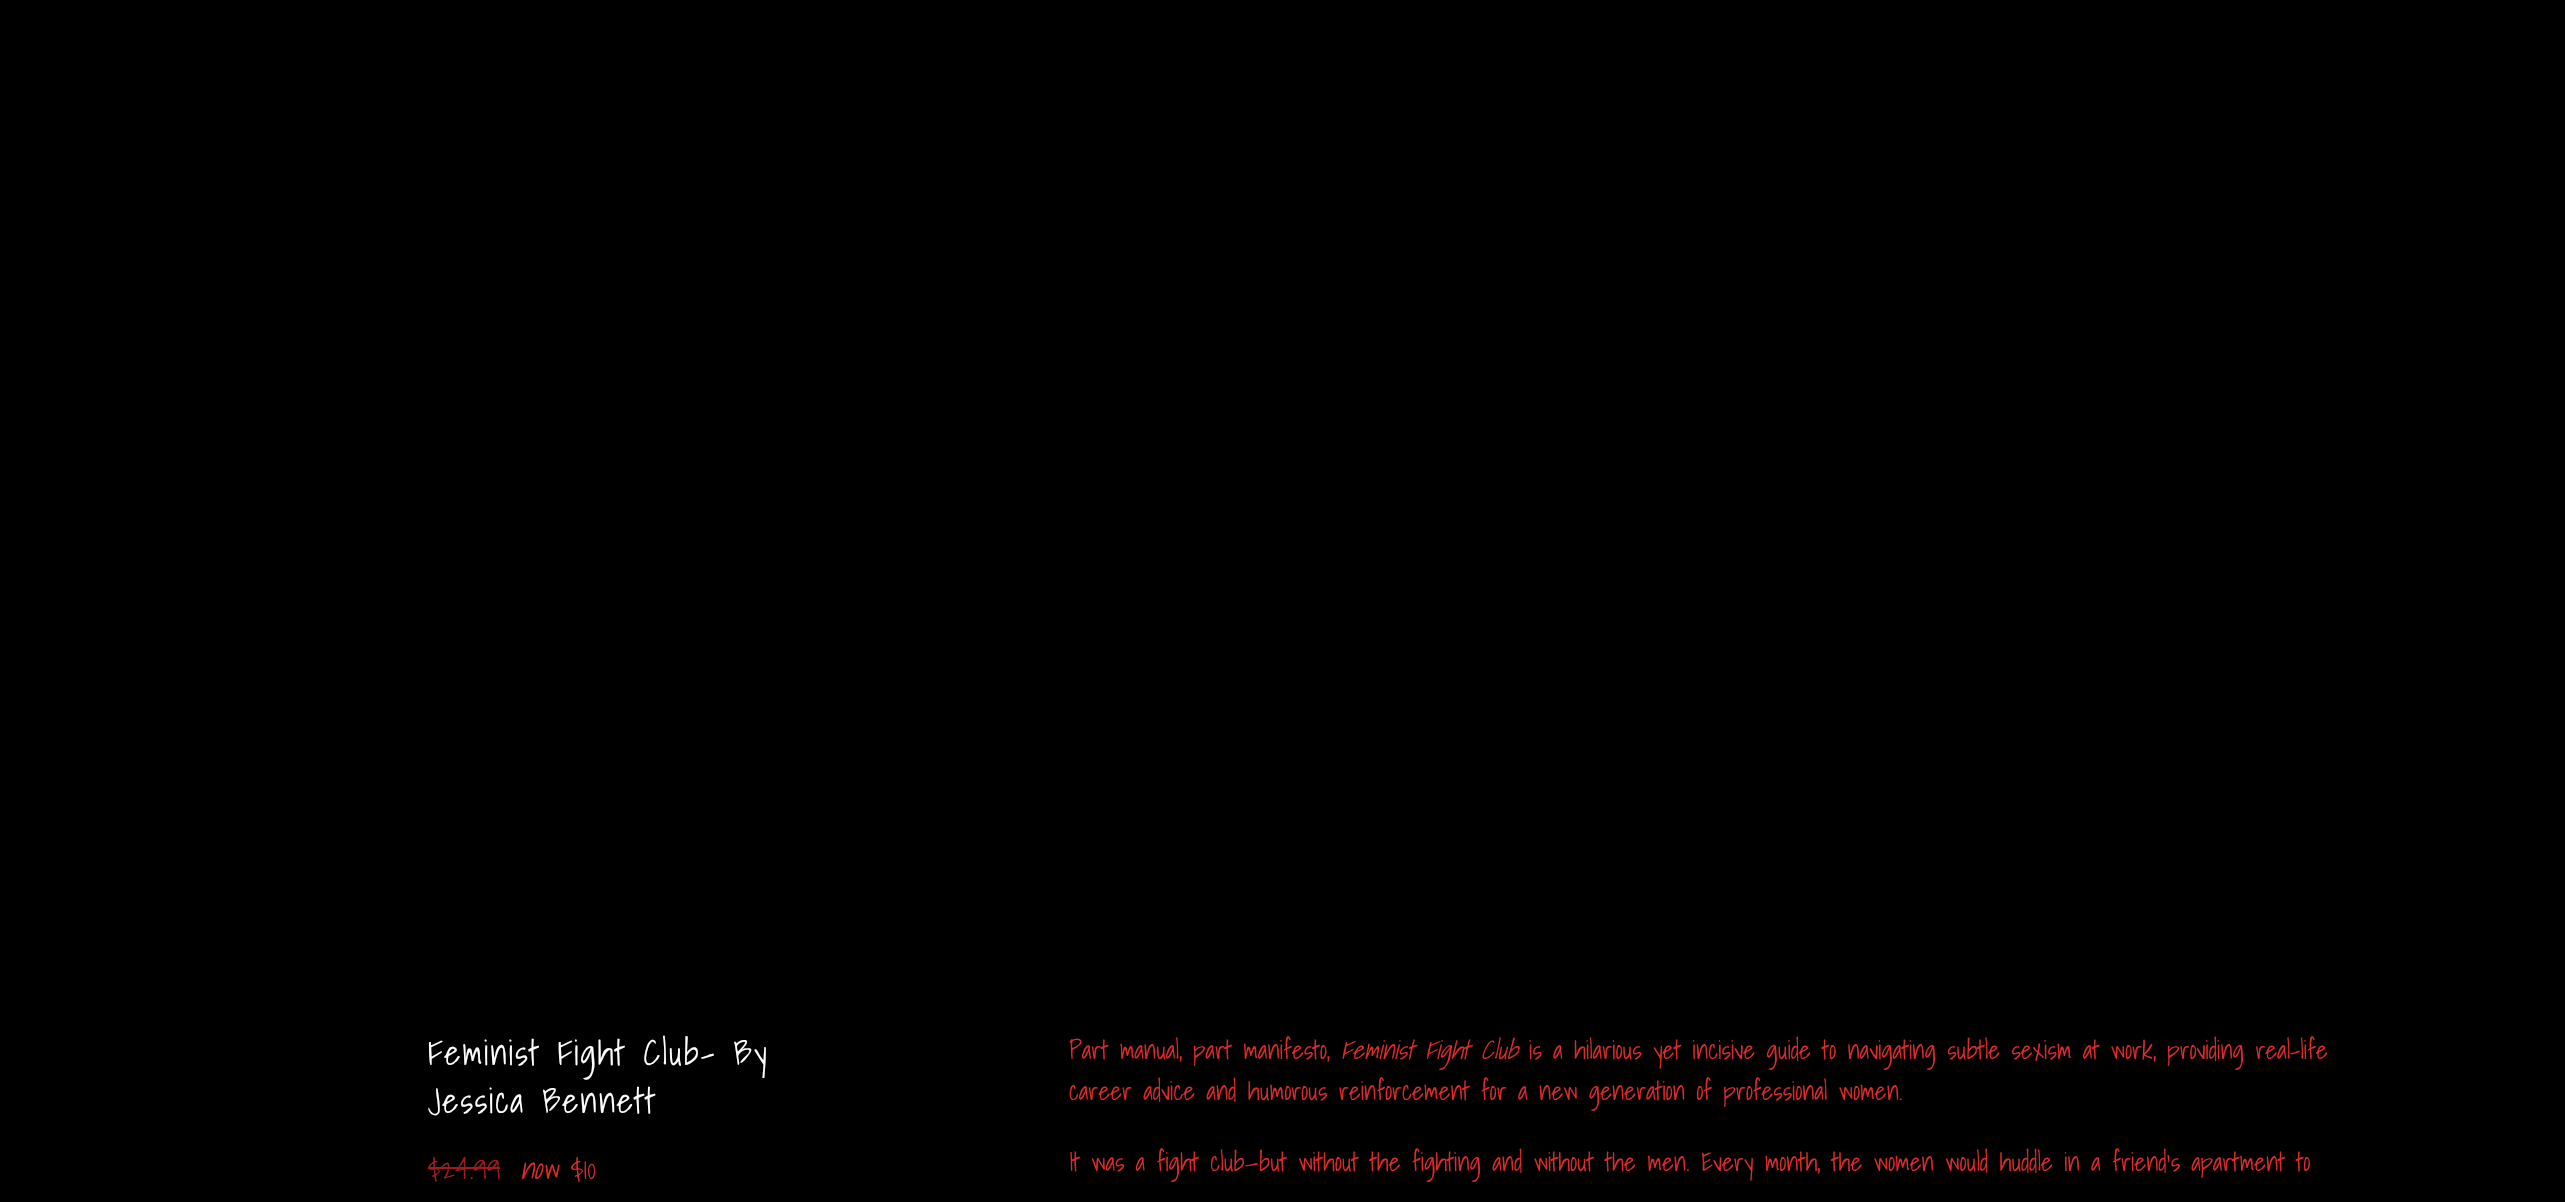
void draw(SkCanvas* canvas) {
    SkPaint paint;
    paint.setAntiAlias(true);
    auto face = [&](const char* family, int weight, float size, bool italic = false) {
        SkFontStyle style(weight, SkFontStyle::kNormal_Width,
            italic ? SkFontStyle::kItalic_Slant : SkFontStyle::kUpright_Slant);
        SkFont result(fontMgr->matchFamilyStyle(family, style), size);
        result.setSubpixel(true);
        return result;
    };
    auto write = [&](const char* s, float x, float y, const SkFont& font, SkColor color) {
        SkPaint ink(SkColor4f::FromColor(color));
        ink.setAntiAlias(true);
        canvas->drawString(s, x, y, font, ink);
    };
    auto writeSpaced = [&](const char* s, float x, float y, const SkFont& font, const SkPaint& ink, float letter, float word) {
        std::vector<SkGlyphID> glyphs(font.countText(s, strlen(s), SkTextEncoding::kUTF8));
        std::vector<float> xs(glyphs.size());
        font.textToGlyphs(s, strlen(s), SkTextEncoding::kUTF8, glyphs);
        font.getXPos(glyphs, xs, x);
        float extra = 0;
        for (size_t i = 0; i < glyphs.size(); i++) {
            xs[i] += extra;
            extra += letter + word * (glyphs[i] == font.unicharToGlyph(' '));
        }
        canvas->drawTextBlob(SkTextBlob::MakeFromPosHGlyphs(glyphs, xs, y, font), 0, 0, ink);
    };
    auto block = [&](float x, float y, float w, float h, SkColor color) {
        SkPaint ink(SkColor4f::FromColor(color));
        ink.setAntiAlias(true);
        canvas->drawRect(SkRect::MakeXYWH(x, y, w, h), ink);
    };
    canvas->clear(SK_ColorBLACK);
    auto kFont1 = face("Shadows Into Light", 400, 34.5f);
    paint.setColor(SK_ColorWHITE);
    writeSpaced("Feminist Fight Club- By", 428, 1065, kFont1, paint, 1.75f, 0);
    writeSpaced("Jessica Bennett", 428, 1113, kFont1, paint, 1.75f, 0);
    auto kFont2 = face("Shadows Into Light", 400, 28.5f);
    write("$24.99", 428, 1179, kFont2, SkColorSetRGB(155, 29, 29));
    block(428, 1167, 72, 2, SkColorSetRGB(155, 29, 29));
    auto kFont3 = face("Shadows Into Light", 400, 28.5f, true);
    write("now", 520, 1179, kFont3, SkColorSetRGB(222, 42, 42));
    write("$10", 571, 1179, kFont2, SkColorSetRGB(222, 42, 42));
    auto kFont4 = face("Shadows Into Light", 400, 25.5f);
    write("Part manual, part manifesto,", 1069, 1059, kFont4, SkColorSetRGB(222, 42, 42));
    auto kFont5 = face("Shadows Into Light", 400, 25.5f, true);
    write("Feminist Fight Club", 1341, 1059, kFont5, SkColorSetRGB(222, 42, 42));
    write("is a hilarious yet incisive guide to navigating subtle sexism at work, providing real-life", 1529, 1059, kFont4, SkColorSetRGB(222, 42, 42));
    write("career advice and humorous reinforcement for a new generation of professional women.", 1069, 1100, kFont4, SkColorSetRGB(222, 42, 42));
    write("It was a fight club—but without the fighting and without the men. Every month, the women would huddle in a friend’s apartment to", 1069, 1171, kFont4, SkColorSetRGB(222, 42, 42));
}
